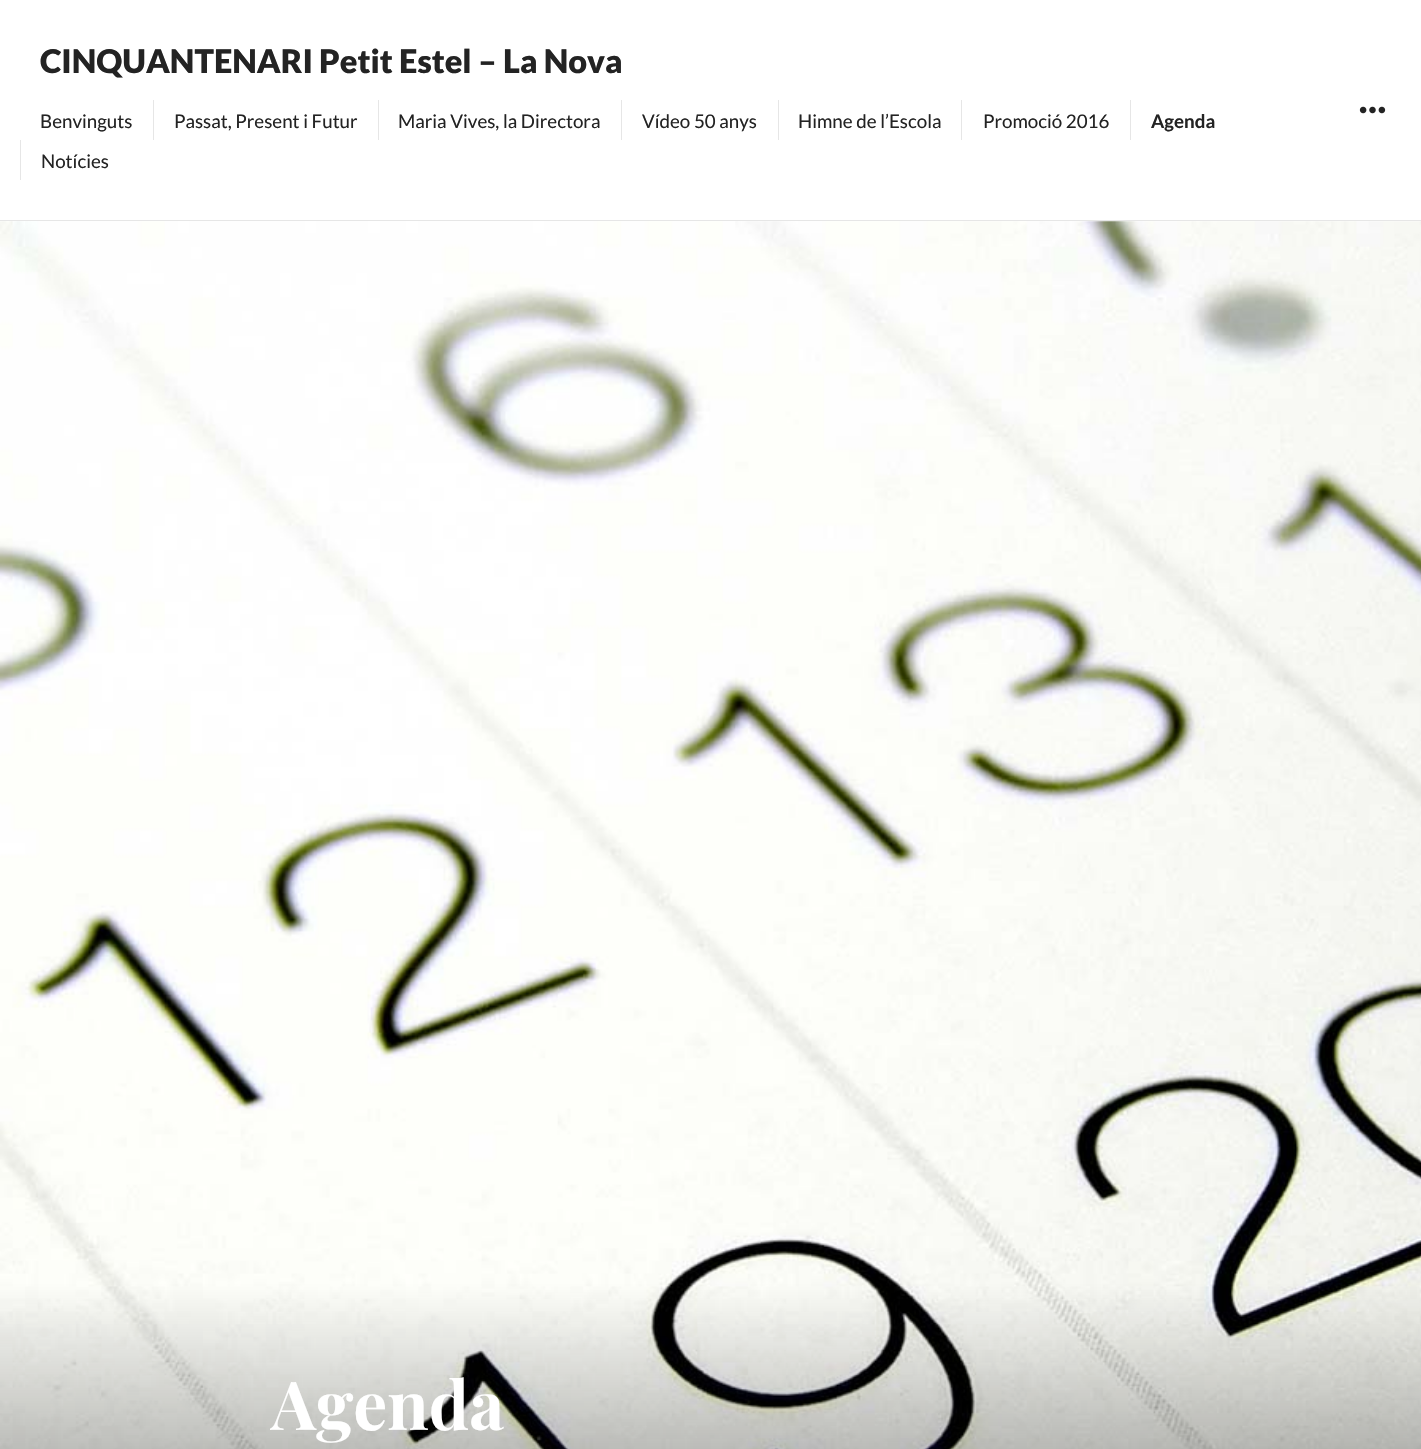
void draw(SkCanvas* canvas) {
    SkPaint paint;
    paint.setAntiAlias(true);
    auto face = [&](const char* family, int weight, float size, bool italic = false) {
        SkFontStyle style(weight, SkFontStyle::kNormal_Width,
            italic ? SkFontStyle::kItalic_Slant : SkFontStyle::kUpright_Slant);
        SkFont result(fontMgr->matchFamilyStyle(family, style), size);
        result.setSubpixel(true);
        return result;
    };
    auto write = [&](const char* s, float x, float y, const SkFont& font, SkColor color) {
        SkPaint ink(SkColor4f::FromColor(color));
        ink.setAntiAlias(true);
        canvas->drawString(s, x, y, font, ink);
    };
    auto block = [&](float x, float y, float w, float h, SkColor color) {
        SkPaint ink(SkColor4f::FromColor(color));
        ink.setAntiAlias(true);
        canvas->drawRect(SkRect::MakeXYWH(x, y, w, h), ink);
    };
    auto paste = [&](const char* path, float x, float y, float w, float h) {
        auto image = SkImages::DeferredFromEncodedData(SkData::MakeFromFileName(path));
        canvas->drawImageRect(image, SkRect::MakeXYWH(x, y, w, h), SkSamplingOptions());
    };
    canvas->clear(SK_ColorWHITE);
    block(0, 220, 1421, 1, SkColorSetRGB(230, 230, 230));
    auto kFont1 = face("Lato", 900, 32.5f);
    write("CINQUANTENARI Petit Estel – La Nova", 40, 73, kFont1, SkColorSetRGB(35, 35, 35));
    paste("pic1.png", 1359, 106, 27, 8);
    auto kFont2 = face("Lato", 400, 18.75f);
    write("Benvinguts", 40, 128, kFont2, SkColorSetRGB(35, 35, 35));
    block(153, 100, 1, 40, SkColorSetRGB(230, 230, 230));
    write("Passat, Present i Futur", 174, 128, kFont2, SkColorSetRGB(35, 35, 35));
    block(378, 100, 1, 40, SkColorSetRGB(230, 230, 230));
    write("Maria Vives, la Directora", 398, 128, kFont2, SkColorSetRGB(35, 35, 35));
    block(621, 100, 1, 40, SkColorSetRGB(230, 230, 230));
    write("Vídeo 50 anys", 642, 128, kFont2, SkColorSetRGB(35, 35, 35));
    block(778, 100, 1, 40, SkColorSetRGB(230, 230, 230));
    write("Himne de l’Escola", 798, 128, kFont2, SkColorSetRGB(35, 35, 35));
    block(961, 100, 1, 40, SkColorSetRGB(230, 230, 230));
    write("Promoció 2016", 983, 128, kFont2, SkColorSetRGB(35, 35, 35));
    block(1130, 100, 1, 40, SkColorSetRGB(230, 230, 230));
    auto kFont3 = face("Lato", 700, 18.75f);
    write("Agenda", 1151, 128, kFont3, SkColorSetRGB(35, 35, 35));
    block(20, 140, 1, 40, SkColorSetRGB(230, 230, 230));
    write("Notícies", 41, 168, kFont2, SkColorSetRGB(35, 35, 35));
    paste("pic2.png", 0, 221, 1421, 1228);
    auto kFont4 = face("Playfair Display", 700, 67.5f);
    write("Agenda", 271, 1430, kFont4, SK_ColorWHITE);
}
